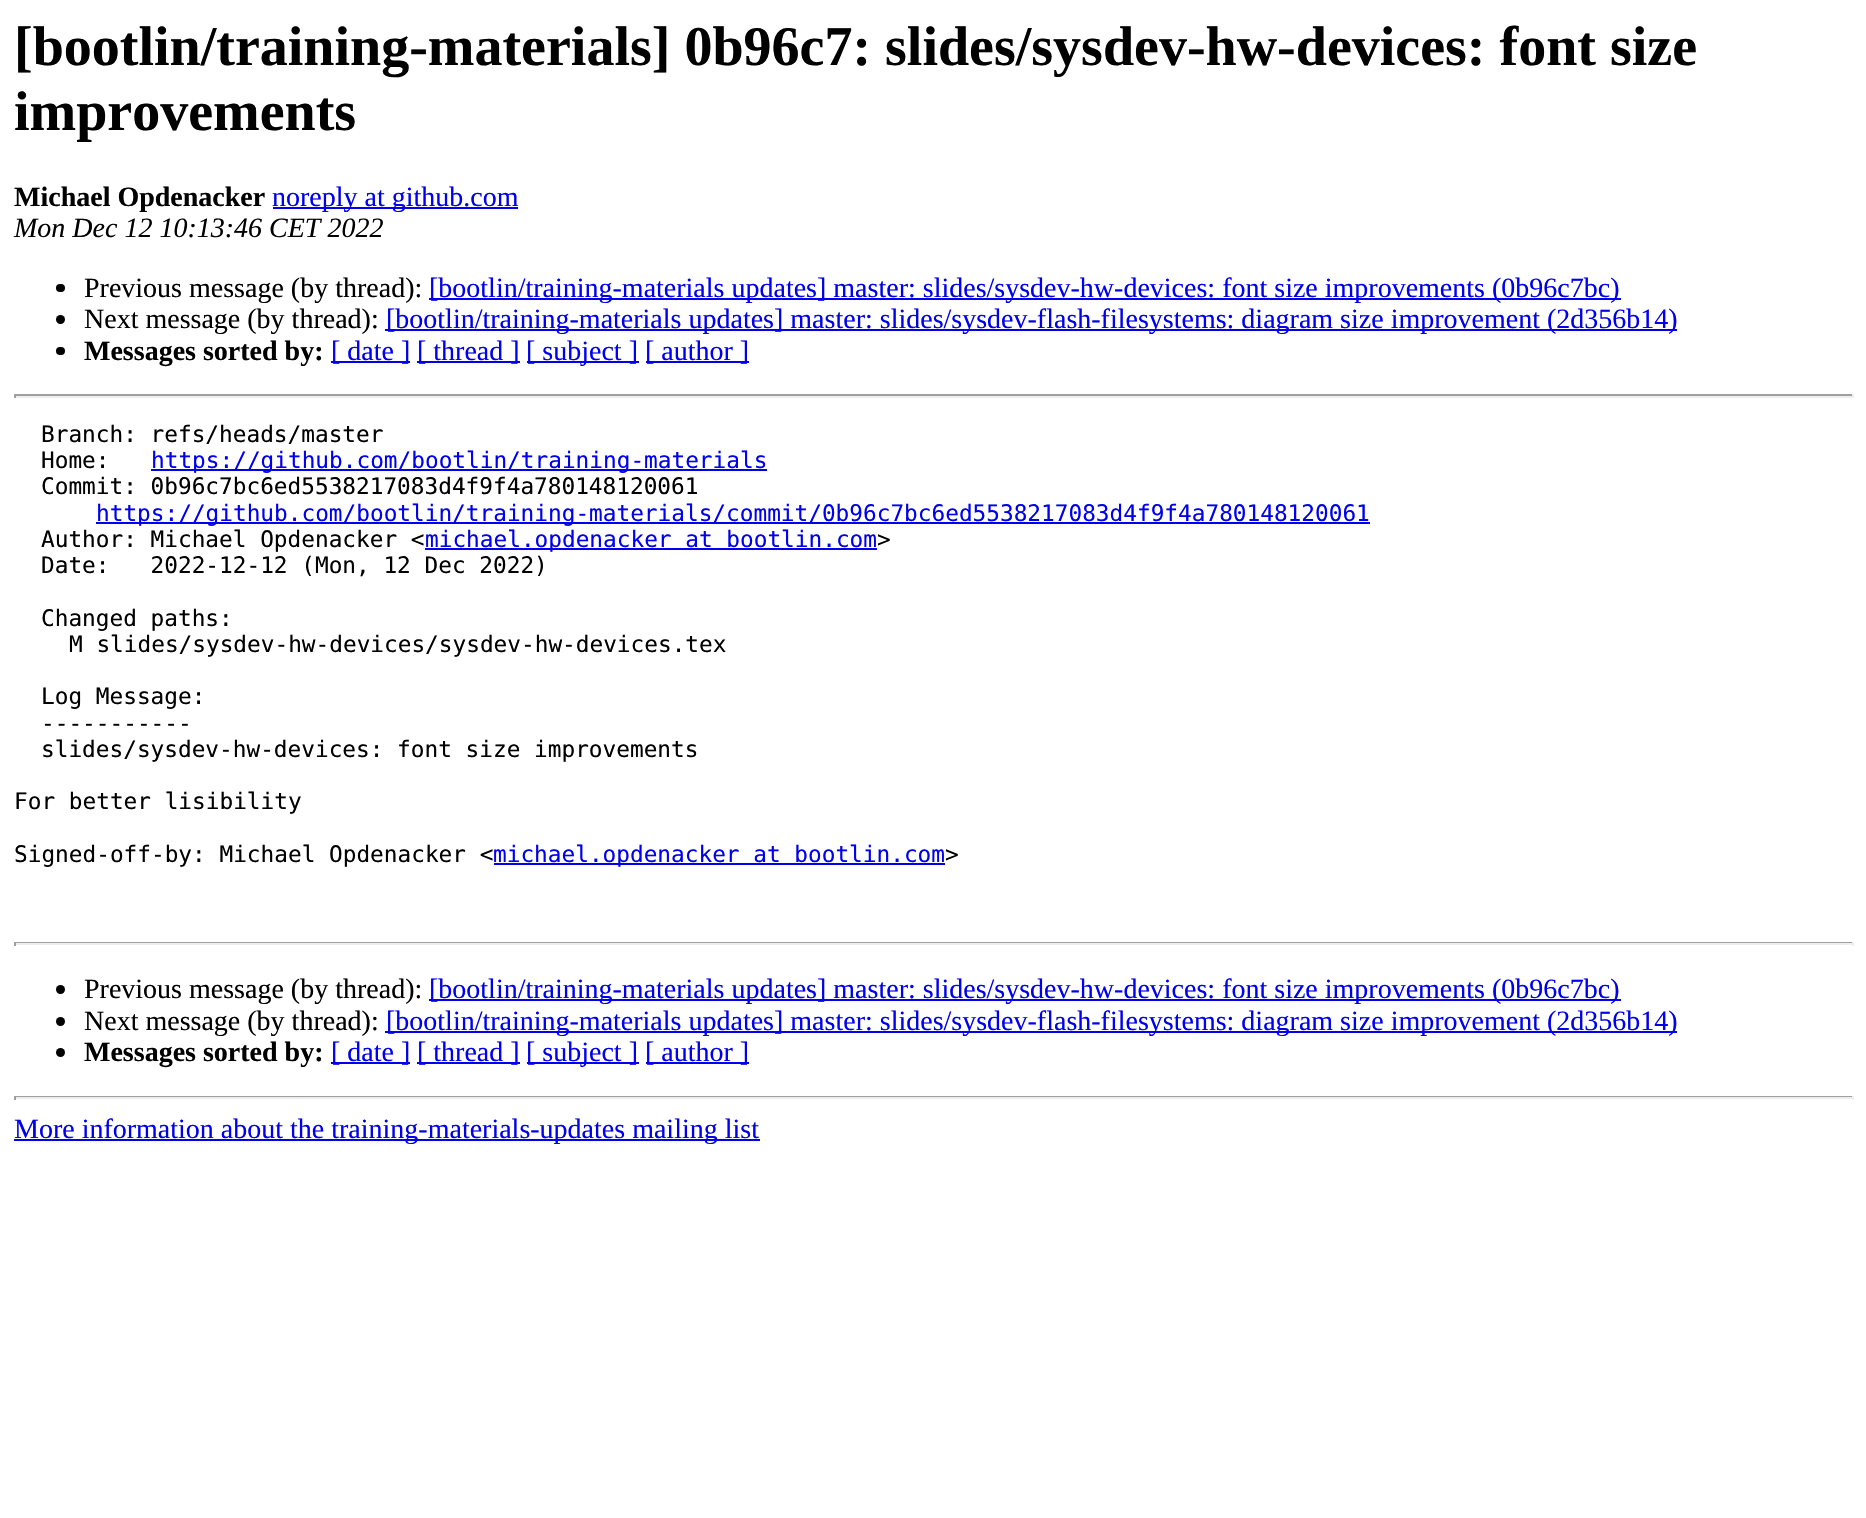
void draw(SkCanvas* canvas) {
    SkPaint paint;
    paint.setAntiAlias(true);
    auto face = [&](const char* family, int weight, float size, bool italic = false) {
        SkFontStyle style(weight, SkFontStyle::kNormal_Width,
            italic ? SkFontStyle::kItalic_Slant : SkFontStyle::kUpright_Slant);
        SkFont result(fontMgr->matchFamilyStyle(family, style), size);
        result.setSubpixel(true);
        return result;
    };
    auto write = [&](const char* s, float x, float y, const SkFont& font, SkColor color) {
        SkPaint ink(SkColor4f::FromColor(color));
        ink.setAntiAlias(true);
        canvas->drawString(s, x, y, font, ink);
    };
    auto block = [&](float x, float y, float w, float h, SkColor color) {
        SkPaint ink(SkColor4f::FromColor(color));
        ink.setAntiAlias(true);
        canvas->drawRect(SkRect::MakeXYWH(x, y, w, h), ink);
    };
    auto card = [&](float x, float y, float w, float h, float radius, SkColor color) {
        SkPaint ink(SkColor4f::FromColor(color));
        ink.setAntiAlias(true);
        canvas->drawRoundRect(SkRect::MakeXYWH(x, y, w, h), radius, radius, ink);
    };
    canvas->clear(SK_ColorWHITE);
    auto kFont1 = face("Liberation Serif", 700, 56);
    write("[bootlin/training-materials] 0b96c7: slides/sysdev-hw-devices: font size", 14, 65, kFont1, SK_ColorBLACK);
    write("improvements", 14, 130, kFont1, SK_ColorBLACK);
    auto kFont2 = face("Liberation Serif", 700, 28);
    write("Michael Opdenacker", 14, 206, kFont2, SK_ColorBLACK);
    block(273, 207, 245, 2, SkColorSetRGB(0, 0, 238));
    auto kFont3 = face("Liberation Serif", 400, 28);
    write("noreply at github.com", 272, 206, kFont3, SkColorSetRGB(0, 0, 238));
    auto kFont4 = face("Liberation Serif", 400, 28, true);
    write("Mon Dec 12 10:13:46 CET 2022", 14, 237, kFont4, SK_ColorBLACK);
    card(56, 284, 9, 8, 4, SK_ColorBLACK);
    write("Previous message (by thread):", 84, 297, kFont3, SK_ColorBLACK);
    block(429, 298, 1192, 2, SkColorSetRGB(0, 0, 238));
    write("[bootlin/training-materials updates] master: slides/sysdev-hw-devices: font size improvements (0b96c7bc)", 429, 297, kFont3, SkColorSetRGB(0, 0, 238));
    paint.setColor(SK_ColorBLACK);
    canvas->drawCircle(60.5f, 319.5f, 4.5f, paint);
    write("Next message (by thread):", 84, 328, kFont3, SK_ColorBLACK);
    block(385, 329, 1292, 2, SkColorSetRGB(0, 0, 238));
    write("[bootlin/training-materials updates] master: slides/sysdev-flash-filesystems: diagram size improvement (2d356b14)", 386, 328, kFont3, SkColorSetRGB(0, 0, 238));
    card(56, 347, 9, 8, 4, SK_ColorBLACK);
    write("Messages sorted by:", 84, 360, kFont2, SK_ColorBLACK);
    block(331, 361, 79, 2, SkColorSetRGB(0, 0, 238));
    write("[ date ]", 331, 360, kFont3, SkColorSetRGB(0, 0, 238));
    block(417, 361, 103, 2, SkColorSetRGB(0, 0, 238));
    write("[ thread ]", 417, 360, kFont3, SkColorSetRGB(0, 0, 238));
    block(527, 361, 112, 2, SkColorSetRGB(0, 0, 238));
    write("[ subject ]", 526, 360, kFont3, SkColorSetRGB(0, 0, 238));
    block(646, 361, 103, 2, SkColorSetRGB(0, 0, 238));
    write("[ author ]", 645, 360, kFont3, SkColorSetRGB(0, 0, 238));
    block(14, 394, 1839, 2, SkColorSetRGB(159, 159, 159));
    block(1852, 394, 2, 4, SkColorSetRGB(238, 238, 238));
    block(14, 396, 1839, 2, SkColorSetRGB(238, 238, 238));
    block(14, 394, 2, 4, SkColorSetRGB(159, 159, 159));
    auto kFont5 = face("DejaVu Sans Mono", 400, 22.75f);
    write("Branch: refs/heads/master", 41, 442, kFont5, SK_ColorBLACK);
    write("Home:", 41, 468, kFont5, SK_ColorBLACK);
    block(151, 469, 616, 2, SkColorSetRGB(0, 0, 238));
    write("https://github.com/bootlin/training-materials", 151, 468, kFont5, SkColorSetRGB(0, 0, 238));
    write("Commit: 0b96c7bc6ed5538217083d4f9f4a780148120061", 41, 494, kFont5, SK_ColorBLACK);
    block(96, 522, 1274, 2, SkColorSetRGB(0, 0, 238));
    write("https://github.com/bootlin/training-materials/commit/0b96c7bc6ed5538217083d4f9f4a780148120061", 96, 521, kFont5, SkColorSetRGB(0, 0, 238));
    write("Author: Michael Opdenacker <", 41, 547, kFont5, SK_ColorBLACK);
    block(425, 548, 452, 2, SkColorSetRGB(0, 0, 238));
    write("michael.opdenacker at bootlin.com", 425, 547, kFont5, SkColorSetRGB(0, 0, 238));
    write(">", 877, 547, kFont5, SK_ColorBLACK);
    write("Date:   2022-12-12 (Mon, 12 Dec 2022)", 41, 573, kFont5, SK_ColorBLACK);
    write("Changed paths:", 41, 626, kFont5, SK_ColorBLACK);
    write("M slides/sysdev-hw-devices/sysdev-hw-devices.tex", 69, 652, kFont5, SK_ColorBLACK);
    write("Log Message:", 41, 704, kFont5, SK_ColorBLACK);
    write("-----------", 41, 731, kFont5, SK_ColorBLACK);
    write("slides/sysdev-hw-devices: font size improvements", 41, 757, kFont5, SK_ColorBLACK);
    write("For better lisibility", 14, 809, kFont5, SK_ColorBLACK);
    write("Signed-off-by: Michael Opdenacker <", 14, 862, kFont5, SK_ColorBLACK);
    block(494, 863, 451, 2, SkColorSetRGB(0, 0, 238));
    write("michael.opdenacker at bootlin.com", 493, 862, kFont5, SkColorSetRGB(0, 0, 238));
    write(">", 945, 862, kFont5, SK_ColorBLACK);
    block(14, 942, 1839, 1, SkColorSetRGB(159, 159, 159));
    block(1852, 942, 2, 4, SkColorSetRGB(238, 238, 238));
    block(14, 943, 1839, 2, SkColorSetRGB(238, 238, 238));
    block(14, 942, 2, 4, SkColorSetRGB(159, 159, 159));
    canvas->drawCircle(60.5f, 989.5f, 4.5f, paint);
    write("Previous message (by thread):", 84, 998, kFont3, SK_ColorBLACK);
    block(429, 999, 1192, 2, SkColorSetRGB(0, 0, 238));
    write("[bootlin/training-materials updates] master: slides/sysdev-hw-devices: font size improvements (0b96c7bc)", 429, 998, kFont3, SkColorSetRGB(0, 0, 238));
    canvas->drawCircle(60.5f, 1021.5f, 4.5f, paint);
    write("Next message (by thread):", 84, 1030, kFont3, SK_ColorBLACK);
    block(385, 1031, 1292, 2, SkColorSetRGB(0, 0, 238));
    write("[bootlin/training-materials updates] master: slides/sysdev-flash-filesystems: diagram size improvement (2d356b14)", 386, 1030, kFont3, SkColorSetRGB(0, 0, 238));
    canvas->drawCircle(60.5f, 1052.5f, 4.5f, paint);
    write("Messages sorted by:", 84, 1061, kFont2, SK_ColorBLACK);
    block(331, 1062, 79, 2, SkColorSetRGB(0, 0, 238));
    write("[ date ]", 331, 1061, kFont3, SkColorSetRGB(0, 0, 238));
    block(417, 1062, 103, 2, SkColorSetRGB(0, 0, 238));
    write("[ thread ]", 417, 1061, kFont3, SkColorSetRGB(0, 0, 238));
    block(527, 1062, 112, 2, SkColorSetRGB(0, 0, 238));
    write("[ subject ]", 526, 1061, kFont3, SkColorSetRGB(0, 0, 238));
    block(646, 1062, 103, 2, SkColorSetRGB(0, 0, 238));
    write("[ author ]", 645, 1061, kFont3, SkColorSetRGB(0, 0, 238));
    block(14, 1096, 1839, 1, SkColorSetRGB(159, 159, 159));
    block(1852, 1096, 2, 4, SkColorSetRGB(238, 238, 238));
    block(14, 1097, 1839, 2, SkColorSetRGB(238, 238, 238));
    block(14, 1096, 2, 4, SkColorSetRGB(159, 159, 159));
    block(14, 1139, 746, 2, SkColorSetRGB(0, 0, 238));
    write("More information about the training-materials-updates mailing list", 14, 1138, kFont3, SkColorSetRGB(0, 0, 238));
}
